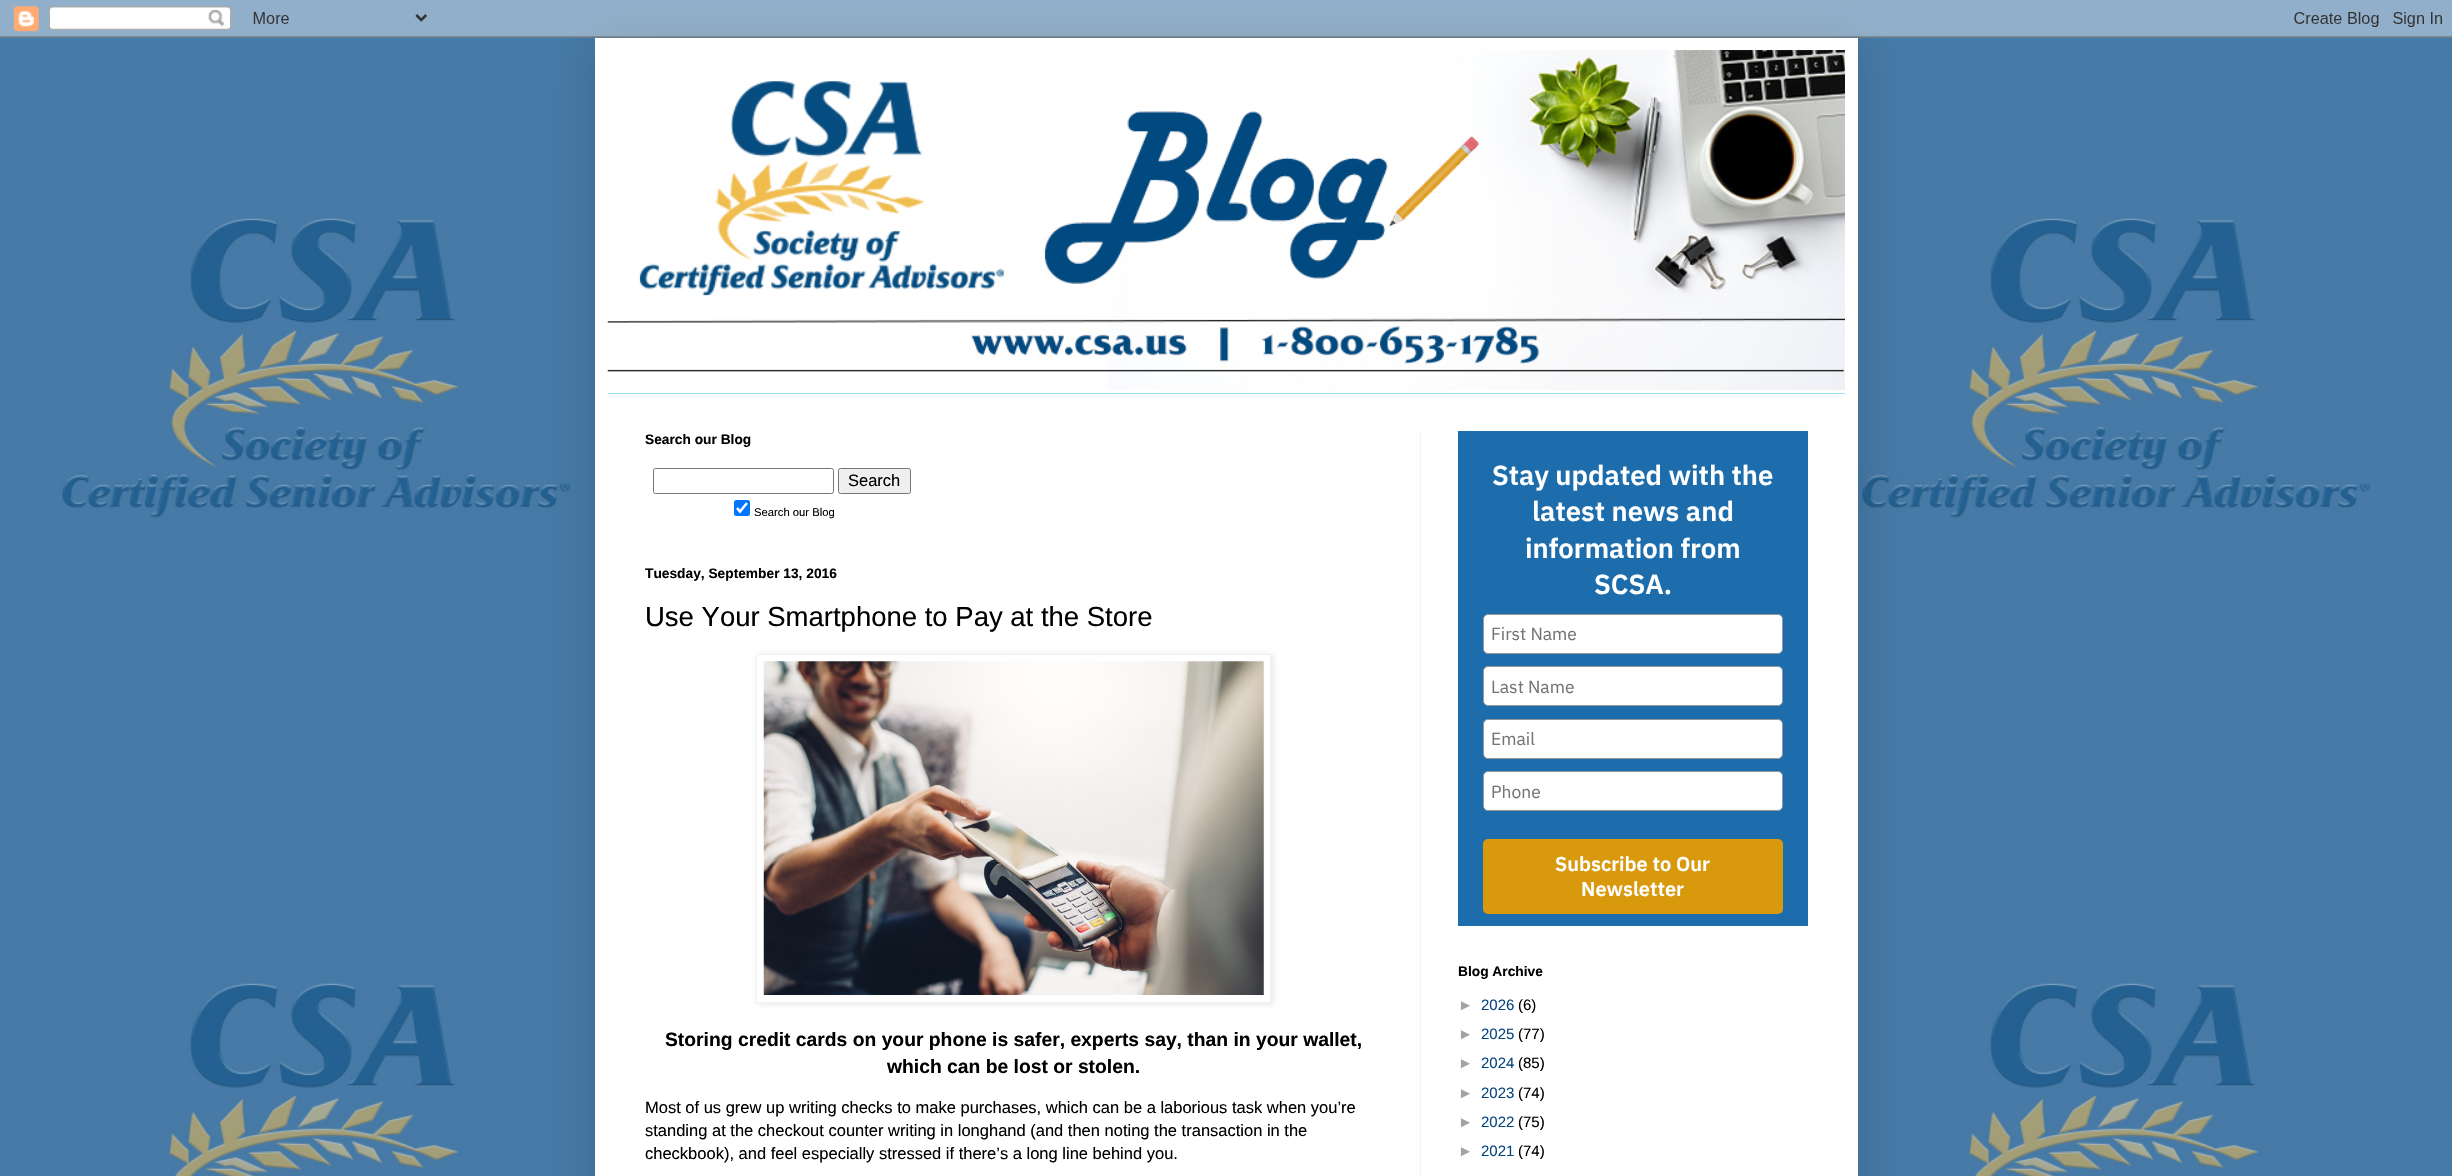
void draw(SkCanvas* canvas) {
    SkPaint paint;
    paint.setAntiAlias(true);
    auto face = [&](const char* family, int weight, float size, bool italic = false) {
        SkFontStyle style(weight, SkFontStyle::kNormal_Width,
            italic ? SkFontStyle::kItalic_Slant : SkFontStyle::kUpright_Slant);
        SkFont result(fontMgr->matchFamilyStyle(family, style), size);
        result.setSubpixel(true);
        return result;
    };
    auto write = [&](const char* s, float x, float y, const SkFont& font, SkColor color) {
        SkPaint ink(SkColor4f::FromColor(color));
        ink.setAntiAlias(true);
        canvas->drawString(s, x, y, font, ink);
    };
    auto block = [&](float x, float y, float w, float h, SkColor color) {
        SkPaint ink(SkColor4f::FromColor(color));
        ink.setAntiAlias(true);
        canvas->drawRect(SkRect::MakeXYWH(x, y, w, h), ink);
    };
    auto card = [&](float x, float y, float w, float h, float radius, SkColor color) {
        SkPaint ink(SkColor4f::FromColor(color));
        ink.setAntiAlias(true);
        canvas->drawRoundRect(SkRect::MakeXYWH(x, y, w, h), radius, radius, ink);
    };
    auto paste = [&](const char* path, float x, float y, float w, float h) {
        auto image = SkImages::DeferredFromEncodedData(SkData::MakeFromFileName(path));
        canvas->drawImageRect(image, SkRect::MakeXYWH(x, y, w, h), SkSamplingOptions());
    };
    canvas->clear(SK_ColorWHITE);
    paste("pic1.png", 0, 0, 2452, 1176);
    paint.setColor(SkColorSetARGB(38, 0, 0, 0));
    paint.setMaskFilter(SkMaskFilter::MakeBlur(kNormal_SkBlurStyle, 25));
    canvas->drawRect(SkRect::MakeXYWH(595, 38, 1263, 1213), paint);
    paint.setMaskFilter(nullptr);
    paste("pic2.png", 0, 0, 2452, 38);
    block(595, 38, 1263, 1138, SK_ColorWHITE);
    block(608, 393, 1237, 1, SkColorSetRGB(21, 188, 235));
    paste("pic3.png", 607, 50, 1238, 344);
    block(1420, 431, 1, 745, SkColorSetRGB(242, 242, 242));
    auto kFont1 = face("Liberation Sans", 700, 13.75f);
    write("Search our Blog", 645, 444, kFont1, SK_ColorBLACK);
    paint.setStyle(SkPaint::kStroke_Style);
    paint.setStrokeWidth(1);
    paint.setColor(SkColorSetRGB(118, 118, 118));
    canvas->drawRoundRect(SkRect::MakeXYWH(653.5f, 468.5f, 180, 25), 2, 2, paint);
    paint.setStyle(SkPaint::kFill_Style);
    paint.setColor(SkColorSetRGB(239, 239, 239));
    canvas->drawRoundRect(SkRect::MakeXYWH(838.5f, 468.5f, 72, 25), 2, 2, paint);
    paint.setStyle(SkPaint::kStroke_Style);
    paint.setColor(SkColorSetRGB(118, 118, 118));
    canvas->drawRoundRect(SkRect::MakeXYWH(838.5f, 468.5f, 72, 25), 2, 2, paint);
    auto kFont2 = face("Liberation Sans", 400, 16.5f);
    write("Search", 848, 486, kFont2, SK_ColorBLACK);
    card(734, 500, 16, 16, 2.5f, SkColorSetRGB(0, 117, 255));
    paint.setStrokeWidth(2.6f);
    paint.setColor(SK_ColorWHITE);
    canvas->drawPath(SkPathBuilder().moveTo(737, 508).lineTo(740, 511.5f).lineTo(747, 503).detach(), paint);
    auto kFont3 = face("Liberation Sans", 400, 11.25f);
    write("Search our Blog", 754, 516, kFont3, SK_ColorBLACK);
    write("Tuesday, September 13, 2016", 645, 578, kFont1, SK_ColorBLACK);
    auto kFont4 = face("Liberation Sans", 400, 27.5f);
    write("Use Your Smartphone to Pay at the Store", 645, 626, kFont4, SK_ColorBLACK);
    paint.setStyle(SkPaint::kFill_Style);
    paint.setColor(SkColorSetARGB(26, 0, 0, 0));
    paint.setMaskFilter(SkMaskFilter::MakeBlur(kNormal_SkBlurStyle, 3));
    canvas->drawRect(SkRect::MakeXYWH(758, 655, 515, 349), paint);
    paint.setMaskFilter(nullptr);
    paint.setColor(SK_ColorWHITE);
    canvas->drawRect(SkRect::MakeXYWH(756.5f, 654.5f, 514, 348), paint);
    paint.setStyle(SkPaint::kStroke_Style);
    paint.setStrokeWidth(1);
    paint.setColor(SkColorSetRGB(242, 242, 242));
    canvas->drawRect(SkRect::MakeXYWH(756.5f, 654.5f, 514, 348), paint);
    paste("pic4.png", 763, 661, 501, 334);
    auto kFont5 = face("Liberation Sans", 700, 19.3f);
    write("Storing credit cards on your phone is safer, experts say, than in your wallet,", 665, 1046, kFont5, SK_ColorBLACK);
    write("which can be lost or stolen.", 887, 1073, kFont5, SK_ColorBLACK);
    write("Most of us grew up writing checks to make purchases, which can be a laborious task when you’re", 645, 1113, kFont2, SK_ColorBLACK);
    write("standing at the checkout counter writing in longhand (and then noting the transaction in the", 645, 1136, kFont2, SK_ColorBLACK);
    write("checkbook), and feel especially stressed if there’s a long line behind you.", 645, 1159, kFont2, SK_ColorBLACK);
    block(1458, 431, 350, 495, SkColorSetRGB(29, 109, 172));
    auto kFont6 = face("IBM Plex Sans", 600, 27.5f);
    write("Stay updated with the", 1492, 485, kFont6, SK_ColorWHITE);
    write("latest news and", 1532, 521, kFont6, SK_ColorWHITE);
    write("information from", 1525, 558, kFont6, SK_ColorWHITE);
    write("SCSA.", 1594, 594, kFont6, SK_ColorWHITE);
    paint.setStyle(SkPaint::kFill_Style);
    paint.setColor(SK_ColorWHITE);
    canvas->drawRoundRect(SkRect::MakeXYWH(1483.5f, 614.5f, 299, 39), 4.5f, 4.5f, paint);
    paint.setStyle(SkPaint::kStroke_Style);
    paint.setColor(SkColorSetRGB(151, 151, 151));
    canvas->drawRoundRect(SkRect::MakeXYWH(1483.5f, 614.5f, 299, 39), 4.5f, 4.5f, paint);
    auto kFont7 = face("IBM Plex Sans", 400, 17.5f);
    write("First Name", 1491, 640, kFont7, SkColorSetRGB(117, 117, 117));
    paint.setStyle(SkPaint::kFill_Style);
    paint.setColor(SK_ColorWHITE);
    canvas->drawRoundRect(SkRect::MakeXYWH(1483.5f, 666.5f, 299, 39), 4.5f, 4.5f, paint);
    paint.setStyle(SkPaint::kStroke_Style);
    paint.setColor(SkColorSetRGB(151, 151, 151));
    canvas->drawRoundRect(SkRect::MakeXYWH(1483.5f, 666.5f, 299, 39), 4.5f, 4.5f, paint);
    write("Last Name", 1491, 693, kFont7, SkColorSetRGB(117, 117, 117));
    paint.setStyle(SkPaint::kFill_Style);
    paint.setColor(SK_ColorWHITE);
    canvas->drawRoundRect(SkRect::MakeXYWH(1483.5f, 719.5f, 299, 39), 4.5f, 4.5f, paint);
    paint.setStyle(SkPaint::kStroke_Style);
    paint.setColor(SkColorSetRGB(151, 151, 151));
    canvas->drawRoundRect(SkRect::MakeXYWH(1483.5f, 719.5f, 299, 39), 4.5f, 4.5f, paint);
    write("Email", 1491, 745, kFont7, SkColorSetRGB(117, 117, 117));
    paint.setStyle(SkPaint::kFill_Style);
    paint.setColor(SK_ColorWHITE);
    canvas->drawRoundRect(SkRect::MakeXYWH(1483.5f, 771.5f, 299, 39), 4.5f, 4.5f, paint);
    paint.setStyle(SkPaint::kStroke_Style);
    paint.setColor(SkColorSetRGB(151, 151, 151));
    canvas->drawRoundRect(SkRect::MakeXYWH(1483.5f, 771.5f, 299, 39), 4.5f, 4.5f, paint);
    write("Phone", 1491, 798, kFont7, SkColorSetRGB(117, 117, 117));
    card(1483, 839, 300, 75, 5, SkColorSetRGB(216, 153, 13));
    auto kFont8 = face("IBM Plex Sans", 600, 20);
    write("Subscribe to Our", 1555, 871, kFont8, SK_ColorWHITE);
    write("Newsletter", 1581, 896, kFont8, SK_ColorWHITE);
    write("Blog Archive", 1458, 976, kFont1, SK_ColorBLACK);
    auto kFont9 = face("Liberation Sans", 400, 15);
    write("►", 1458, 1010, kFont9, SkColorSetRGB(163, 163, 163));
    write("2026", 1481, 1010, kFont9, SkColorSetRGB(7, 69, 127));
    write("(6)", 1518, 1010, kFont9, SK_ColorBLACK);
    write("►", 1458, 1039, kFont9, SkColorSetRGB(163, 163, 163));
    write("2025", 1481, 1039, kFont9, SkColorSetRGB(7, 69, 127));
    write("(77)", 1518, 1039, kFont9, SK_ColorBLACK);
    write("►", 1458, 1068, kFont9, SkColorSetRGB(163, 163, 163));
    write("2024", 1481, 1068, kFont9, SkColorSetRGB(7, 69, 127));
    write("(85)", 1518, 1068, kFont9, SK_ColorBLACK);
    write("►", 1458, 1098, kFont9, SkColorSetRGB(163, 163, 163));
    write("2023", 1481, 1098, kFont9, SkColorSetRGB(7, 69, 127));
    write("(74)", 1518, 1098, kFont9, SK_ColorBLACK);
    write("►", 1458, 1127, kFont9, SkColorSetRGB(163, 163, 163));
    write("2022", 1481, 1127, kFont9, SkColorSetRGB(7, 69, 127));
    write("(75)", 1518, 1127, kFont9, SK_ColorBLACK);
    write("►", 1458, 1156, kFont9, SkColorSetRGB(163, 163, 163));
    write("2021", 1481, 1156, kFont9, SkColorSetRGB(7, 69, 127));
    write("(74)", 1518, 1156, kFont9, SK_ColorBLACK);
}
